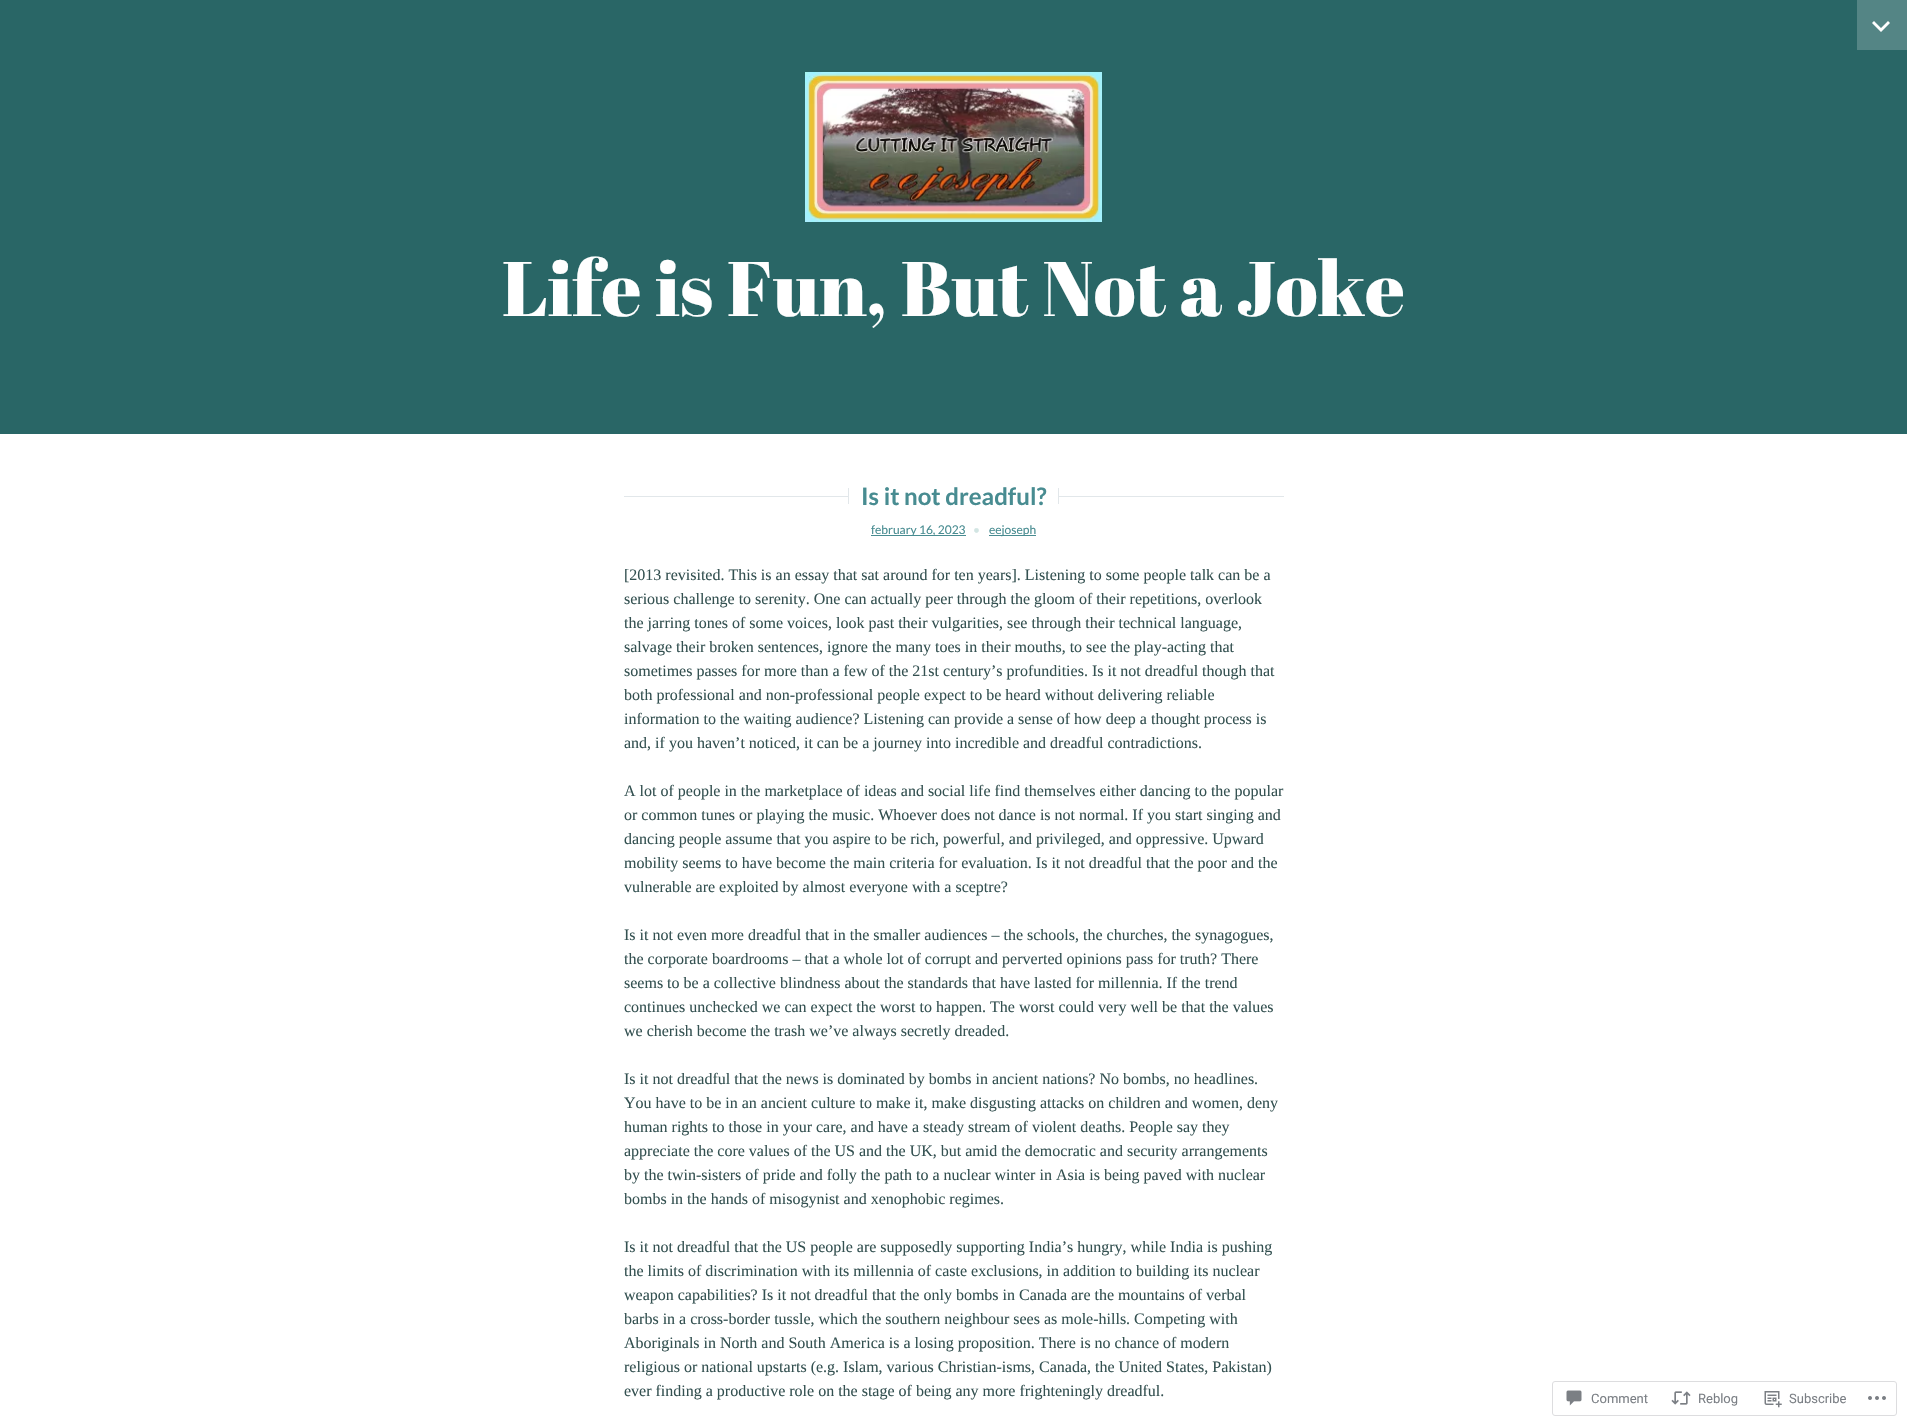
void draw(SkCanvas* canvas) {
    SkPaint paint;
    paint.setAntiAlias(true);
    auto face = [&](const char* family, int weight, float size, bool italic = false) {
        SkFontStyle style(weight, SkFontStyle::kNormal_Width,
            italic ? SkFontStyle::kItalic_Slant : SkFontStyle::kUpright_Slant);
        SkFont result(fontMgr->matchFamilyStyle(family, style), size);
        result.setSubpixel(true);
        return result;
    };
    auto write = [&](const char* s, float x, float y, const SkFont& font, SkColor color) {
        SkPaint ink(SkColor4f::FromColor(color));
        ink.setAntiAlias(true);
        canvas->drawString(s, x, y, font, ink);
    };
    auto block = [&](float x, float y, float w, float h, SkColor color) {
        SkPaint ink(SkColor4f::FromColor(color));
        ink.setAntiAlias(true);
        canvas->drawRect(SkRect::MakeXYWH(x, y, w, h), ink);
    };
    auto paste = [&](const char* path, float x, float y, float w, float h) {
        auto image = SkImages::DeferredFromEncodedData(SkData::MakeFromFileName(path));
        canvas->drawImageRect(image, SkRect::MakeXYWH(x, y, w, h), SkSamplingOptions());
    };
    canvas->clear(SK_ColorWHITE);
    block(0, 0, 1907, 434, SkColorSetRGB(41, 102, 102));
    block(1857, 0, 50, 50, SkColorSetRGB(84, 133, 133));
    paint.setColor(SK_ColorWHITE);
    canvas->drawPath(SkPathBuilder().moveTo(1888, 21).lineTo(1890, 23).lineTo(1881, 32).lineTo(1872, 23).lineTo(1874, 21).lineTo(1881, 28).close().detach(), paint);
    paste("pic1.png", 805, 72, 297, 150);
    auto kFont1 = face("Abril Fatface", 400, 77);
    write("Life is Fun, But Not a Joke", 502, 316, kFont1, SK_ColorWHITE);
    block(624, 496, 660, 1, SkColorSetRGB(226, 231, 234));
    block(849, 496, 209, 1, SK_ColorWHITE);
    block(848, 482, 1, 28, SkColorSetRGB(226, 231, 234));
    block(848, 482, 1, 6, SK_ColorWHITE);
    block(848, 504, 1, 6, SK_ColorWHITE);
    auto kFont2 = face("Lato", 700, 24);
    write("Is it not dreadful?", 861, 505, kFont2, SkColorSetRGB(72, 140, 145));
    block(1058, 482, 1, 28, SkColorSetRGB(226, 231, 234));
    block(1058, 482, 1, 6, SK_ColorWHITE);
    block(1058, 504, 1, 6, SK_ColorWHITE);
    block(871, 535, 95, 1, SkColorSetRGB(72, 140, 145));
    auto kFont3 = face("Lato", 400, 12);
    write("february 16, 2023", 871, 534, kFont3, SkColorSetRGB(72, 140, 145));
    write("•", 973, 534, kFont3, SkColorSetRGB(210, 229, 227));
    block(989, 535, 47, 1, SkColorSetRGB(72, 140, 145));
    write("eejoseph", 989, 534, kFont3, SkColorSetRGB(72, 140, 145));
    auto kFont4 = face("Liberation Serif", 400, 16);
    write("[2013 revisited. This is an essay that sat around for ten years]. Listening to some people talk can be a", 624, 580, kFont4, SkColorSetRGB(52, 81, 81));
    write("serious challenge to serenity. One can actually peer through the gloom of their repetitions, overlook", 624, 604, kFont4, SkColorSetRGB(52, 81, 81));
    write("the jarring tones of some voices, look past their vulgarities, see through their technical language,", 624, 628, kFont4, SkColorSetRGB(52, 81, 81));
    write("salvage their broken sentences, ignore the many toes in their mouths, to see the play-acting that", 624, 652, kFont4, SkColorSetRGB(52, 81, 81));
    write("sometimes passes for more than a few of the 21st century’s profundities. Is it not dreadful though that", 624, 676, kFont4, SkColorSetRGB(52, 81, 81));
    write("both professional and non-professional people expect to be heard without delivering reliable", 624, 700, kFont4, SkColorSetRGB(52, 81, 81));
    write("information to the waiting audience? Listening can provide a sense of how deep a thought process is", 624, 724, kFont4, SkColorSetRGB(52, 81, 81));
    write("and, if you haven’t noticed, it can be a journey into incredible and dreadful contradictions.", 624, 748, kFont4, SkColorSetRGB(52, 81, 81));
    write("A lot of people in the marketplace of ideas and social life find themselves either dancing to the popular", 624, 796, kFont4, SkColorSetRGB(52, 81, 81));
    write("or common tunes or playing the music. Whoever does not dance is not normal. If you start singing and", 624, 820, kFont4, SkColorSetRGB(52, 81, 81));
    write("dancing people assume that you aspire to be rich, powerful, and privileged, and oppressive. Upward", 624, 844, kFont4, SkColorSetRGB(52, 81, 81));
    write("mobility seems to have become the main criteria for evaluation. Is it not dreadful that the poor and the", 624, 868, kFont4, SkColorSetRGB(52, 81, 81));
    write("vulnerable are exploited by almost everyone with a sceptre?", 624, 892, kFont4, SkColorSetRGB(52, 81, 81));
    write("Is it not even more dreadful that in the smaller audiences – the schools, the churches, the synagogues,", 624, 940, kFont4, SkColorSetRGB(52, 81, 81));
    write("the corporate boardrooms – that a whole lot of corrupt and perverted opinions pass for truth? There", 624, 964, kFont4, SkColorSetRGB(52, 81, 81));
    write("seems to be a collective blindness about the standards that have lasted for millennia. If the trend", 624, 988, kFont4, SkColorSetRGB(52, 81, 81));
    write("continues unchecked we can expect the worst to happen. The worst could very well be that the values", 624, 1012, kFont4, SkColorSetRGB(52, 81, 81));
    write("we cherish become the trash we’ve always secretly dreaded.", 624, 1036, kFont4, SkColorSetRGB(52, 81, 81));
    write("Is it not dreadful that the news is dominated by bombs in ancient nations? No bombs, no headlines.", 624, 1084, kFont4, SkColorSetRGB(52, 81, 81));
    write("You have to be in an ancient culture to make it, make disgusting attacks on children and women, deny", 624, 1108, kFont4, SkColorSetRGB(52, 81, 81));
    write("human rights to those in your care, and have a steady stream of violent deaths. People say they", 624, 1132, kFont4, SkColorSetRGB(52, 81, 81));
    write("appreciate the core values of the US and the UK, but amid the democratic and security arrangements", 624, 1156, kFont4, SkColorSetRGB(52, 81, 81));
    write("by the twin-sisters of pride and folly the path to a nuclear winter in Asia is being paved with nuclear", 624, 1180, kFont4, SkColorSetRGB(52, 81, 81));
    write("bombs in the hands of misogynist and xenophobic regimes.", 624, 1204, kFont4, SkColorSetRGB(52, 81, 81));
    write("Is it not dreadful that the US people are supposedly supporting India’s hungry, while India is pushing", 624, 1252, kFont4, SkColorSetRGB(52, 81, 81));
    write("the limits of discrimination with its millennia of caste exclusions, in addition to building its nuclear", 624, 1276, kFont4, SkColorSetRGB(52, 81, 81));
    write("weapon capabilities? Is it not dreadful that the only bombs in Canada are the mountains of verbal", 624, 1300, kFont4, SkColorSetRGB(52, 81, 81));
    write("barbs in a cross-border tussle, which the southern neighbour sees as mole-hills. Competing with", 624, 1324, kFont4, SkColorSetRGB(52, 81, 81));
    write("Aboriginals in North and South America is a losing proposition. There is no chance of modern", 624, 1348, kFont4, SkColorSetRGB(52, 81, 81));
    write("religious or national upstarts (e.g. Islam, various Christian-isms, Canada, the United States, Pakistan)", 624, 1372, kFont4, SkColorSetRGB(52, 81, 81));
    write("ever finding a productive role on the stage of being any more frighteningly dreadful.", 624, 1396, kFont4, SkColorSetRGB(52, 81, 81));
    paint.setStyle(SkPaint::kStroke_Style);
    paint.setStrokeWidth(1);
    paint.setColor(SkColorSetRGB(221, 221, 223));
    canvas->drawRoundRect(SkRect::MakeXYWH(1552.5f, 1381.5f, 344, 34), 2.5f, 2.5f, paint);
    paste("pic2.png", 1566, 1390, 16, 16);
    auto kFont5 = face("Roboto", 400, 13);
    write("Comment", 1591, 1403, kFont5, SkColorSetRGB(123, 127, 133));
    paste("pic3.png", 1671, 1391, 20, 14);
    write("Reblog", 1698, 1403, kFont5, SkColorSetRGB(123, 127, 133));
    paste("pic4.png", 1764, 1391, 18, 17);
    write("Subscribe", 1789, 1403, kFont5, SkColorSetRGB(123, 127, 133));
    paste("pic5.png", 1868, 1396, 18, 4);
}
